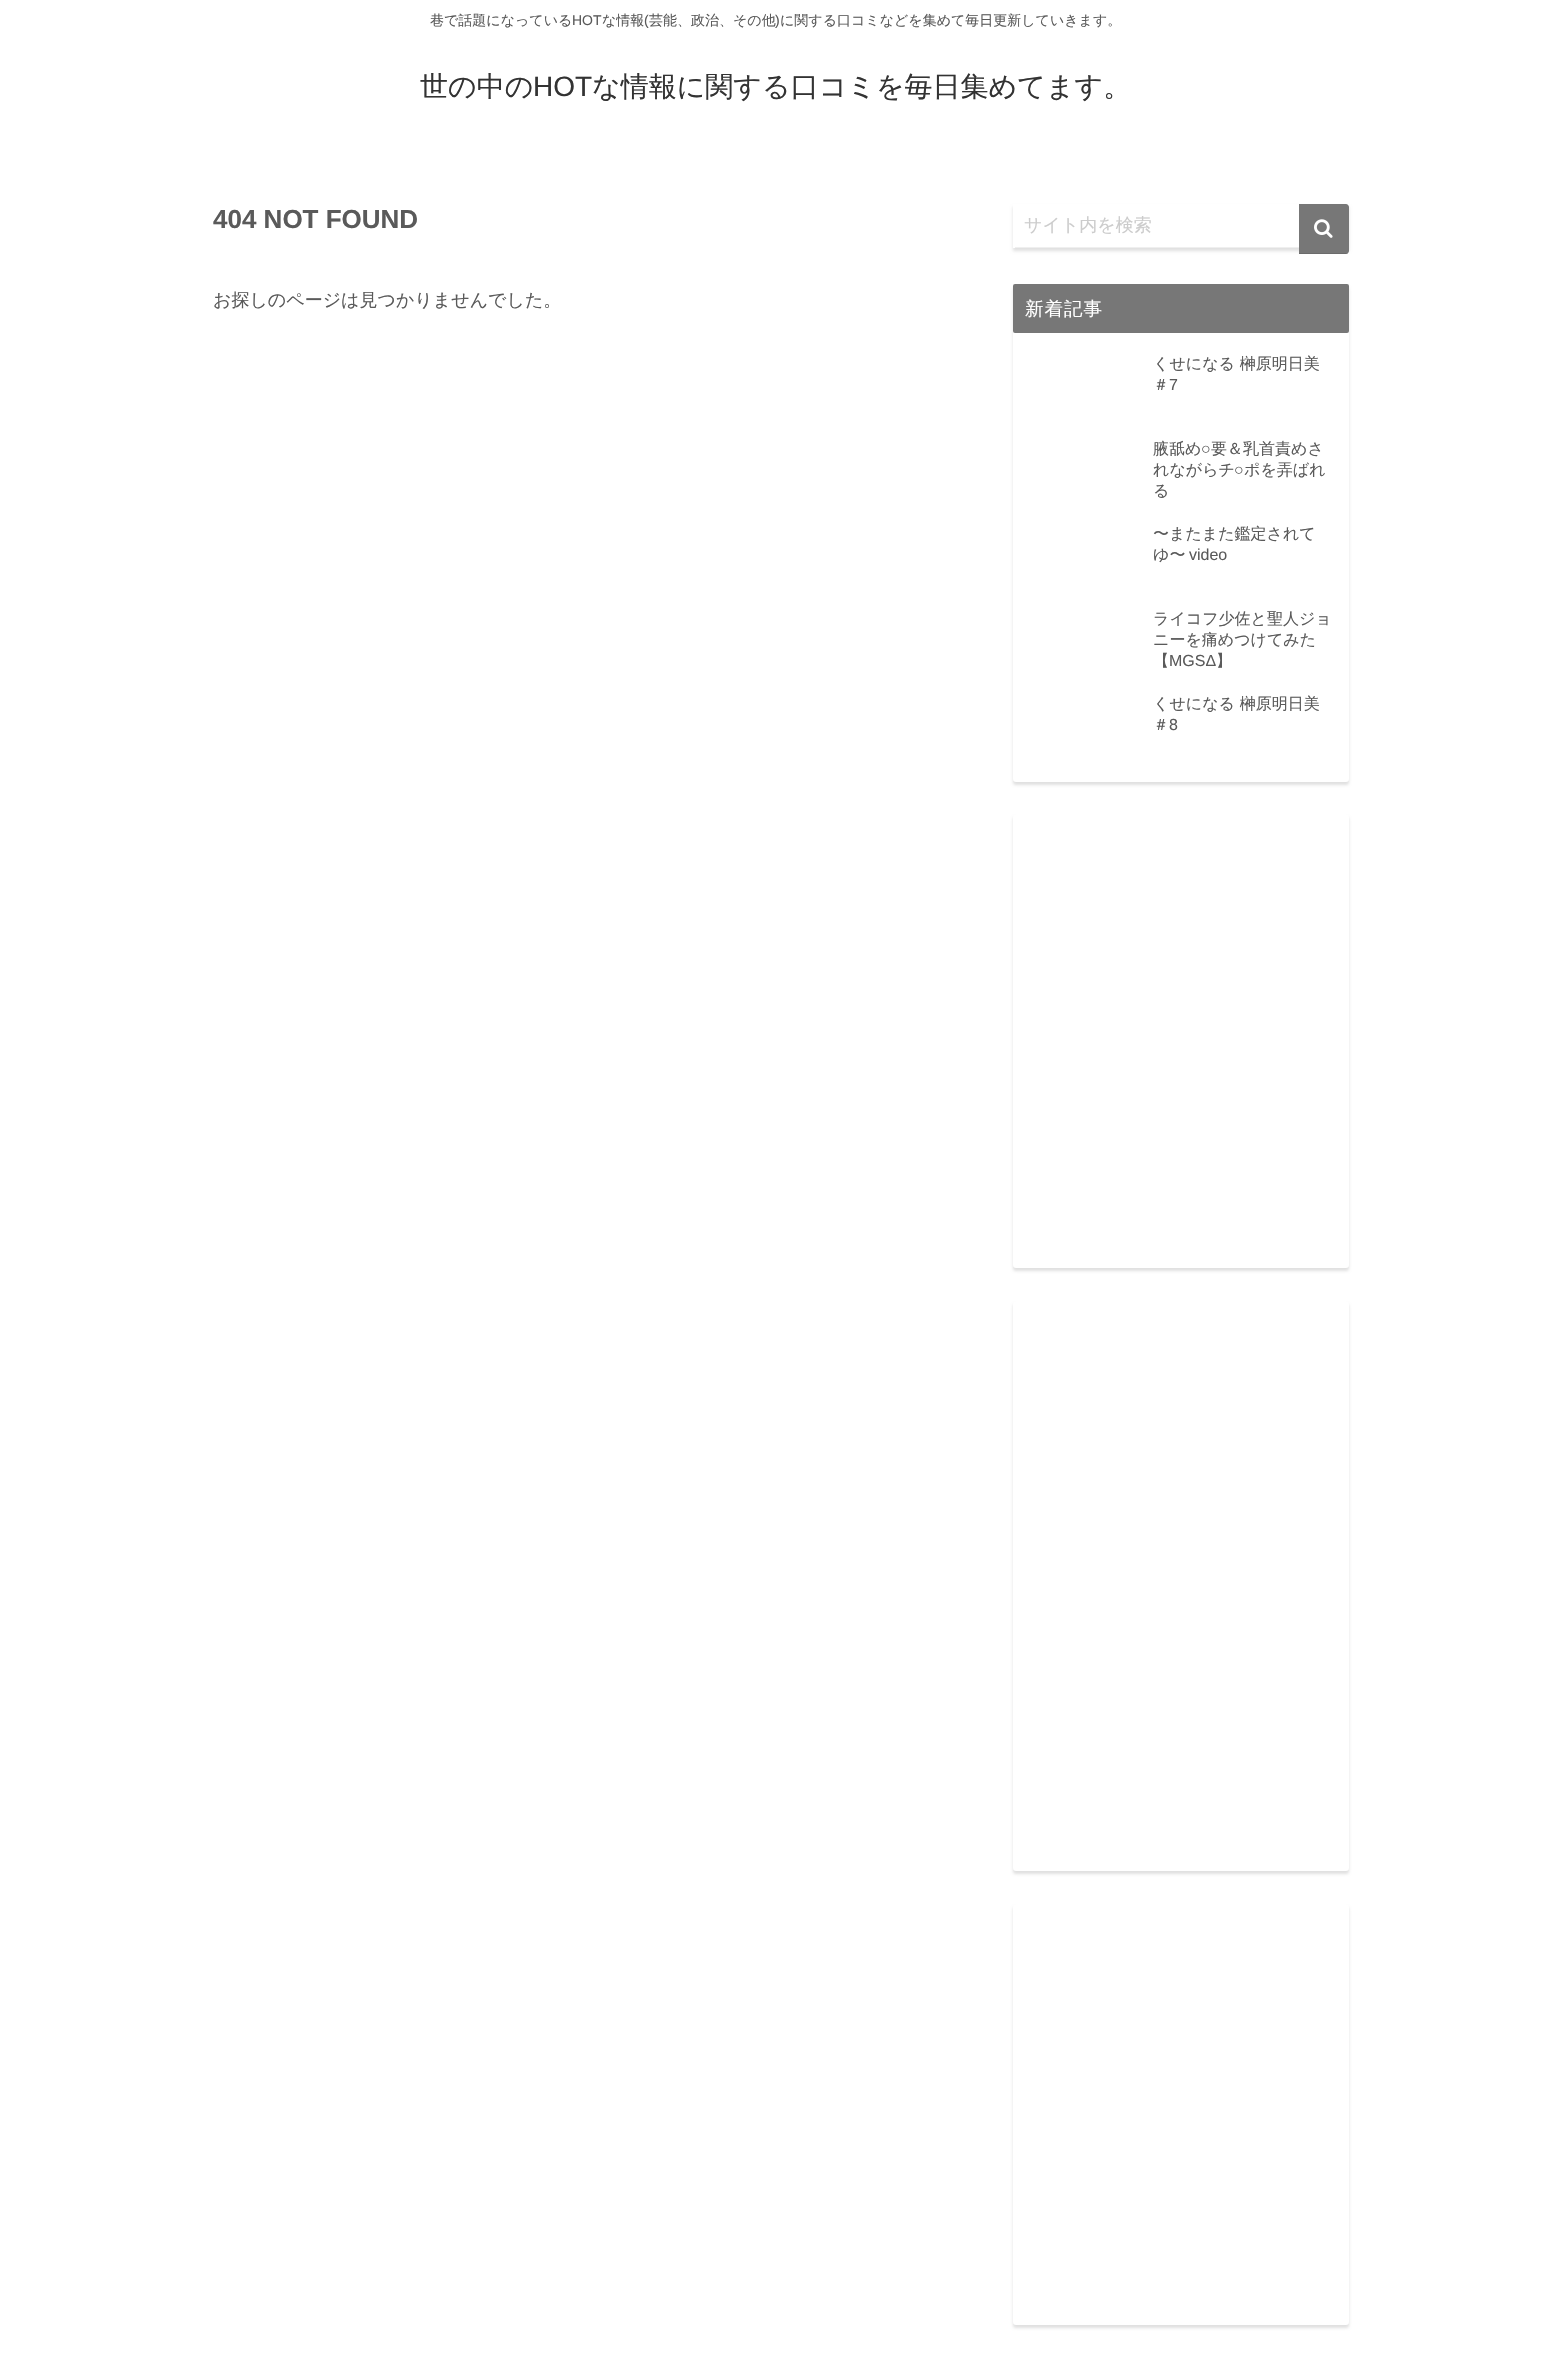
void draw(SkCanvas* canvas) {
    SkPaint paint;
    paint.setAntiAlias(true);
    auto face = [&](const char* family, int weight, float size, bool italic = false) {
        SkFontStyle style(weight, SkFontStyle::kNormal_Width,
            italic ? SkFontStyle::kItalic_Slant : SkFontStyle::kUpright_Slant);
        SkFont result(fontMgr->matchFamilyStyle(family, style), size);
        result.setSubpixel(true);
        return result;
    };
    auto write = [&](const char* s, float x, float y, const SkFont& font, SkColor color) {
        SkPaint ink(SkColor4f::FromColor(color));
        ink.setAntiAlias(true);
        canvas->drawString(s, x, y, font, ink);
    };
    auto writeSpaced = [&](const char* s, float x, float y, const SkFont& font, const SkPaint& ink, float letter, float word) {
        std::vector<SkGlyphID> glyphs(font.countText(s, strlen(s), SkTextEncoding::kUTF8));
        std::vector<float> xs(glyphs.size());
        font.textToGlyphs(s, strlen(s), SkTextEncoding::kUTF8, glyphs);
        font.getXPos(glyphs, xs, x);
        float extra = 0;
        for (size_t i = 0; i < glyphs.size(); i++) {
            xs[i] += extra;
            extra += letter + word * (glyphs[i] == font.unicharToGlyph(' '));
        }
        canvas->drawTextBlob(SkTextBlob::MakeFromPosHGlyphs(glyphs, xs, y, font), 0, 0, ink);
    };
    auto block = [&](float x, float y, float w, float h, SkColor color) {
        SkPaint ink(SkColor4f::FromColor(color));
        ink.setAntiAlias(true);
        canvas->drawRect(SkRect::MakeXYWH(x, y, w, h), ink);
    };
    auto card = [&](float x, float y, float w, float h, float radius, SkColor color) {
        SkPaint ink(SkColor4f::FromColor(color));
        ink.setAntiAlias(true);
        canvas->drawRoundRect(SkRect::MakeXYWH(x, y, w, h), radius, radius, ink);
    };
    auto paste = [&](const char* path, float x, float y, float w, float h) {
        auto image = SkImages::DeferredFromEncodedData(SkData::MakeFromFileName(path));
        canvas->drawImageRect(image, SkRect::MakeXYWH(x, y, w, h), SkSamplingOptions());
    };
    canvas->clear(SK_ColorWHITE);
    auto kFont1 = face("WenQuanYi Zen Hei", 500, 14);
    write("巷で話題になっている", 430, 25, kFont1, SkColorSetRGB(90, 90, 90));
    auto kFont2 = face("Liberation Sans", 400, 14);
    write("HOT", 572, 25, kFont2, SkColorSetRGB(90, 90, 90));
    write("な情報", 602, 25, kFont1, SkColorSetRGB(90, 90, 90));
    write("(", 644, 25, kFont2, SkColorSetRGB(90, 90, 90));
    write("芸能、政治、その他", 649, 25, kFont1, SkColorSetRGB(90, 90, 90));
    write(")", 775, 25, kFont2, SkColorSetRGB(90, 90, 90));
    write("に関する口コミなどを集めて毎日更新していきます。", 780, 25, kFont1, SkColorSetRGB(90, 90, 90));
    auto kFont3 = face("WenQuanYi Zen Hei", 500, 28);
    write("世の中の", 420, 96, kFont3, SkColorSetRGB(51, 51, 51));
    auto kFont4 = face("Liberation Sans", 400, 28);
    write("HOT", 533, 96, kFont4, SkColorSetRGB(51, 51, 51));
    write("な情報に関する口コミを毎日集めてます。", 592, 96, kFont3, SkColorSetRGB(51, 51, 51));
    auto kFont5 = face("Liberation Sans", 700, 26);
    write("404 NOT FOUND", 213, 228, kFont5, SkColorSetRGB(90, 90, 90));
    auto kFont6 = face("WenQuanYi Zen Hei", 500, 18);
    write("お探しのページは見つかりませんでした。", 213, 306, kFont6, SkColorSetRGB(90, 90, 90));
    canvas->save();
    canvas->clipPath(SkPathBuilder(SkPathFillType::kEvenOdd).moveTo(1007, 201).lineTo(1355, 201).lineTo(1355, 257).lineTo(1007, 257).close().moveTo(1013, 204).lineTo(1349, 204).lineTo(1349, 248).lineTo(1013, 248).close().detach(), true);
    paint.setColor(SkColorSetARGB(31, 0, 0, 0));
    paint.setMaskFilter(SkMaskFilter::MakeBlur(kNormal_SkBlurStyle, 1.5f));
    canvas->drawRect(SkRect::MakeXYWH(1013, 207, 336, 44), paint);
    paint.setMaskFilter(nullptr);
    canvas->restore();
    block(1015, 247, 284, 1, SkColorSetRGB(239, 239, 239));
    write("サイト内を検索", 1024, 231, kFont6, SkColorSetRGB(204, 204, 204));
    paint.setColor(SkColorSetRGB(119, 119, 119));
    canvas->drawPath(SkPathBuilder().moveTo(1299, 204).lineTo(1346, 204).cubicTo(1347.5f, 204, 1349, 205.5f, 1349, 207).lineTo(1349, 251).cubicTo(1349, 252.5f, 1347.5f, 254, 1346, 254).lineTo(1299, 254).close().detach(), paint);
    block(1299, 253, 49, 1, SkColorSetARGB(26, 0, 0, 0));
    paste("pic1.png", 1314, 219, 19, 19);
    paint.setColor(SkColorSetARGB(31, 0, 0, 0));
    paint.setMaskFilter(SkMaskFilter::MakeBlur(kNormal_SkBlurStyle, 1.5f));
    canvas->drawRoundRect(SkRect::MakeXYWH(1013, 287, 336, 498), 3, 3, paint);
    paint.setMaskFilter(nullptr);
    card(1013, 284, 336, 498, 3, SK_ColorWHITE);
    card(1013, 284, 336, 49, 2, SkColorSetRGB(119, 119, 119));
    auto kFont7 = face("WenQuanYi Zen Hei", 500, 18.5f);
    paint.setColor(SK_ColorWHITE);
    writeSpaced("新着記事", 1025, 315, kFont7, paint, 1, 0);
    auto kFont8 = face("WenQuanYi Zen Hei", 500, 16);
    write("くせになる 榊原明日美", 1153, 369, kFont8, SkColorSetRGB(90, 90, 90));
    write("＃", 1153, 390, kFont8, SkColorSetRGB(90, 90, 90));
    auto kFont9 = face("Liberation Sans", 400, 16);
    write("7", 1169, 390, kFont9, SkColorSetRGB(90, 90, 90));
    write("腋舐め", 1153, 454, kFont8, SkColorSetRGB(90, 90, 90));
    write("○", 1201, 454, kFont9, SkColorSetRGB(90, 90, 90));
    write("要＆乳首責めさ", 1211, 454, kFont8, SkColorSetRGB(90, 90, 90));
    write("れながらチ", 1153, 475, kFont8, SkColorSetRGB(90, 90, 90));
    write("○", 1234, 475, kFont9, SkColorSetRGB(90, 90, 90));
    write("ポを弄ばれ", 1244, 475, kFont8, SkColorSetRGB(90, 90, 90));
    write("る", 1153, 496, kFont8, SkColorSetRGB(90, 90, 90));
    write("〜またまた鑑定されて", 1153, 539, kFont8, SkColorSetRGB(90, 90, 90));
    write("ゆ〜", 1153, 560, kFont8, SkColorSetRGB(90, 90, 90));
    write("video", 1189, 560, kFont9, SkColorSetRGB(90, 90, 90));
    write("ライコフ少佐と聖人ジョ", 1153, 624, kFont8, SkColorSetRGB(90, 90, 90));
    write("ニーを痛めつけてみた", 1153, 645, kFont8, SkColorSetRGB(90, 90, 90));
    write("【", 1153, 666, kFont8, SkColorSetRGB(90, 90, 90));
    write("MGSΔ", 1169, 666, kFont9, SkColorSetRGB(90, 90, 90));
    write("】", 1216, 666, kFont8, SkColorSetRGB(90, 90, 90));
    write("くせになる 榊原明日美", 1153, 709, kFont8, SkColorSetRGB(90, 90, 90));
    write("＃", 1153, 730, kFont8, SkColorSetRGB(90, 90, 90));
    write("8", 1169, 730, kFont9, SkColorSetRGB(90, 90, 90));
    paint.setColor(SkColorSetARGB(31, 0, 0, 0));
    paint.setMaskFilter(SkMaskFilter::MakeBlur(kNormal_SkBlurStyle, 1.5f));
    canvas->drawRoundRect(SkRect::MakeXYWH(1013, 817, 336, 454), 3, 3, paint);
    paint.setMaskFilter(nullptr);
    card(1013, 814, 336, 454, 3, SK_ColorWHITE);
    paint.setMaskFilter(SkMaskFilter::MakeBlur(kNormal_SkBlurStyle, 1.5f));
    canvas->drawRoundRect(SkRect::MakeXYWH(1013, 1304, 336, 570), 3, 3, paint);
    paint.setMaskFilter(nullptr);
    card(1013, 1301, 336, 570, 3, SK_ColorWHITE);
    paint.setMaskFilter(SkMaskFilter::MakeBlur(kNormal_SkBlurStyle, 1.5f));
    canvas->drawRoundRect(SkRect::MakeXYWH(1013, 1907, 336, 421), 3, 3, paint);
    paint.setMaskFilter(nullptr);
    card(1013, 1904, 336, 421, 3, SK_ColorWHITE);
}
